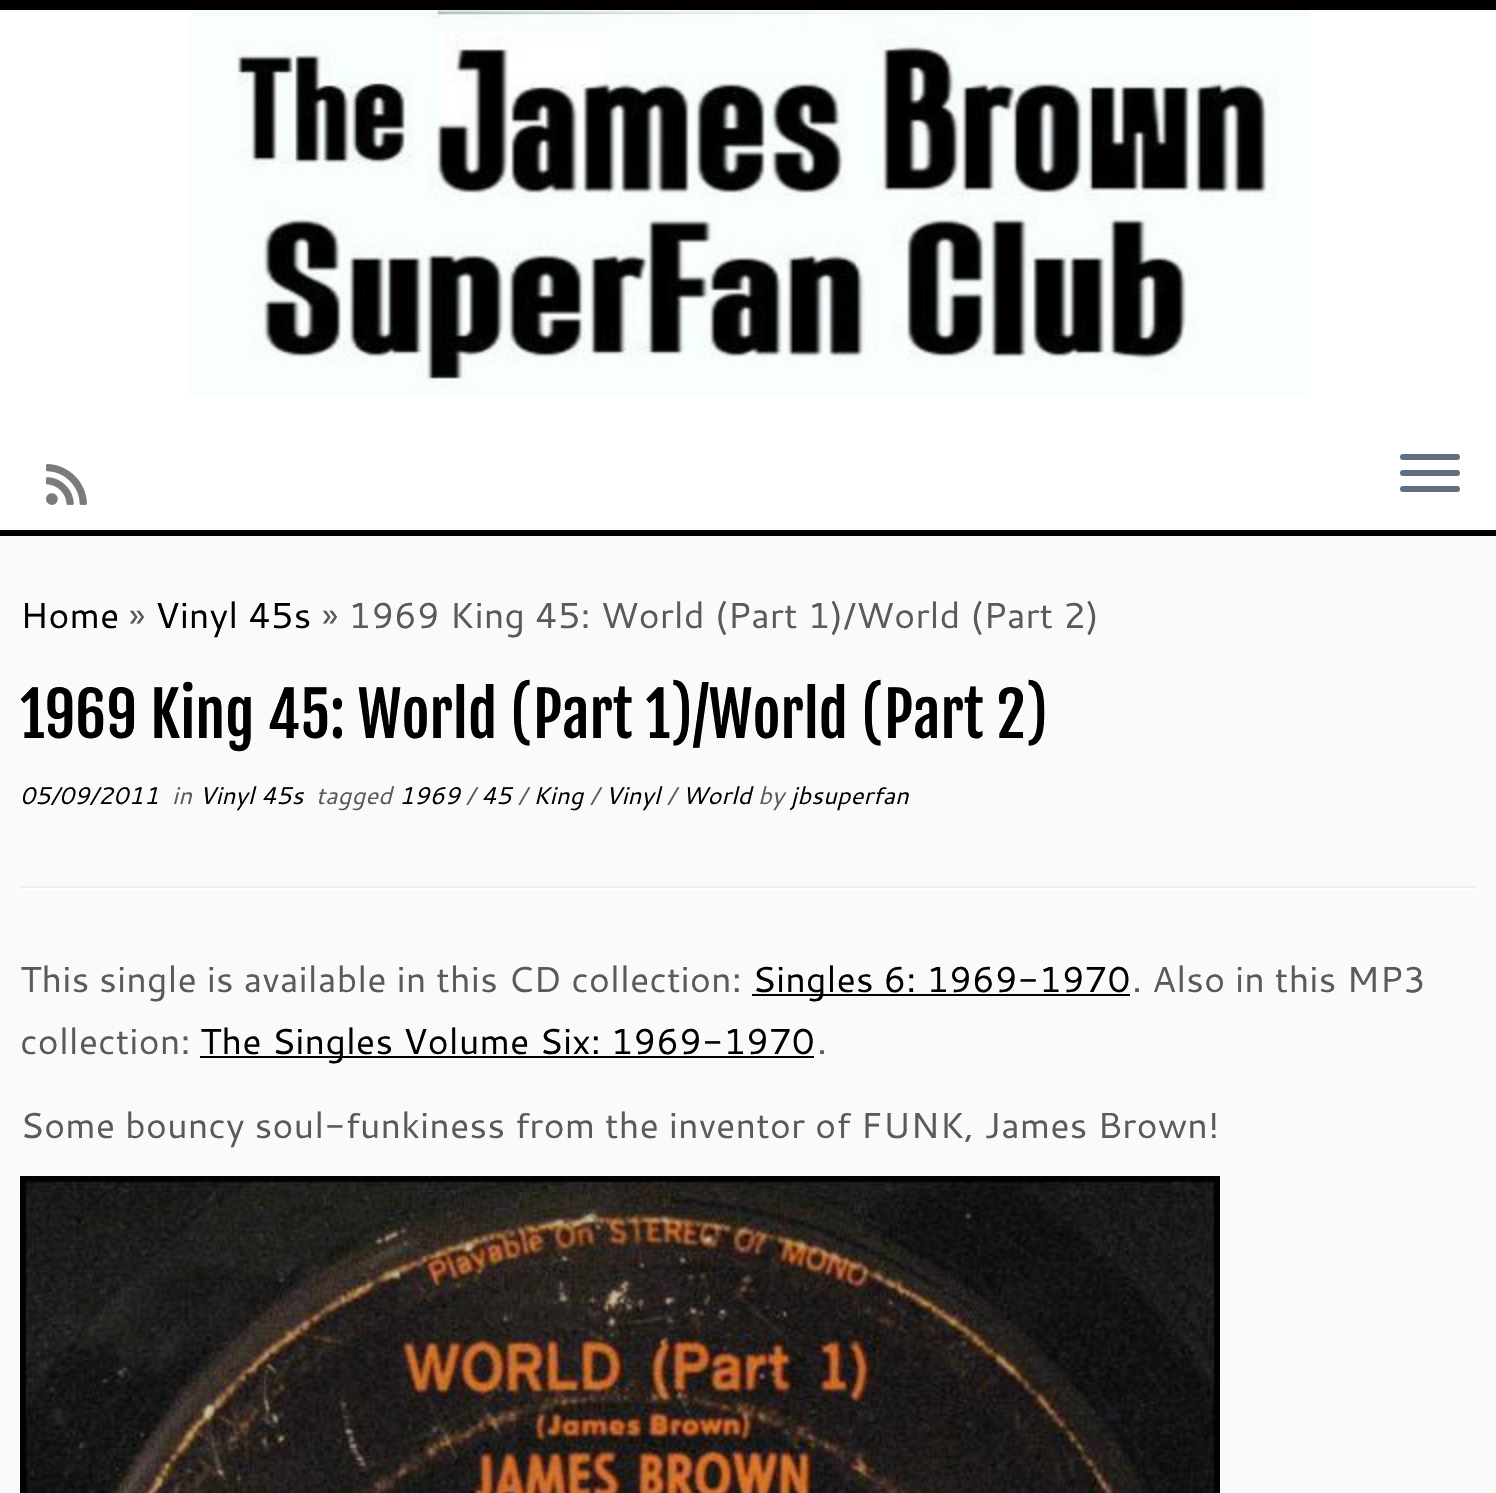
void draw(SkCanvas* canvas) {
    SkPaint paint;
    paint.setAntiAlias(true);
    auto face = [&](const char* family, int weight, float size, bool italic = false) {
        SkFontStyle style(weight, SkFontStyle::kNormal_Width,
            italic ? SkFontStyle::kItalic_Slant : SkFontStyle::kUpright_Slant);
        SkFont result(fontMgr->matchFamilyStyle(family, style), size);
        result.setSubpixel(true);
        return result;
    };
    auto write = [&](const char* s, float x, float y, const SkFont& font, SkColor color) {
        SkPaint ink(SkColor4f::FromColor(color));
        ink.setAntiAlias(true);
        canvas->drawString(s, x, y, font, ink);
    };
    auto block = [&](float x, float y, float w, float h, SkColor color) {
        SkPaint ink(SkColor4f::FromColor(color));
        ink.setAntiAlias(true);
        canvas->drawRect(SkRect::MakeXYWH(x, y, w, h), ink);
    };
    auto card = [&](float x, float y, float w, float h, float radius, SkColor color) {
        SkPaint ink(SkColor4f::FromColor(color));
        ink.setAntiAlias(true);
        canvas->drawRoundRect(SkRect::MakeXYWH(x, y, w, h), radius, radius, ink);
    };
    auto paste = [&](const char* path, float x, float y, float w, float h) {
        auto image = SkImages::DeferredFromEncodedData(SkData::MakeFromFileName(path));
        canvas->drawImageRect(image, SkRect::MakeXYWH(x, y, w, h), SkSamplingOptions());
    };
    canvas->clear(SkColorSetRGB(250, 250, 250));
    block(0, 10, 1496, 520, SK_ColorWHITE);
    block(0, 0, 1496, 10, SK_ColorBLACK);
    block(0, 530, 1496, 6, SK_ColorBLACK);
    paste("pic1.png", 188, 10, 1122, 386);
    paste("pic2.png", 46, 464, 41, 41);
    card(1400, 454, 60, 6, 3, SkColorSetRGB(95, 111, 129));
    card(1400, 470, 60, 6, 3, SkColorSetRGB(95, 111, 129));
    card(1400, 486, 60, 6, 3, SkColorSetRGB(95, 111, 129));
    auto kFont1 = face("Cantarell", 400, 36);
    write("Home", 20, 628, kFont1, SK_ColorBLACK);
    write("»", 129, 628, kFont1, SkColorSetRGB(90, 90, 90));
    write("Vinyl 45s", 155, 628, kFont1, SK_ColorBLACK);
    write("» 1969 King 45: World (Part 1)/World (Part 2)", 322, 628, kFont1, SkColorSetRGB(90, 90, 90));
    auto kFont2 = face("Fjalla One", 400, 60.75f);
    write("1969 King 45: World (Part 1)/World (Part 2)", 20, 738, kFont2, SK_ColorBLACK);
    auto kFont3 = face("Cantarell", 400, 24, true);
    write("05/09/2011", 20, 804, kFont3, SK_ColorBLACK);
    write("in", 172, 804, kFont3, SkColorSetRGB(90, 90, 90));
    write("Vinyl 45s", 199, 804, kFont3, SK_ColorBLACK);
    write("tagged", 316, 804, kFont3, SkColorSetRGB(90, 90, 90));
    write("1969", 399, 804, kFont3, SK_ColorBLACK);
    write("/", 466, 804, kFont3, SkColorSetRGB(90, 90, 90));
    write("45", 481, 804, kFont3, SK_ColorBLACK);
    write("/", 518, 804, kFont3, SkColorSetRGB(90, 90, 90));
    write("King", 533, 804, kFont3, SK_ColorBLACK);
    write("/", 590, 804, kFont3, SkColorSetRGB(90, 90, 90));
    write("Vinyl", 605, 804, kFont3, SK_ColorBLACK);
    write("/", 667, 804, kFont3, SkColorSetRGB(90, 90, 90));
    write("World", 682, 804, kFont3, SK_ColorBLACK);
    write("by", 758, 804, kFont3, SkColorSetRGB(90, 90, 90));
    write("jbsuperfan", 791, 804, kFont3, SK_ColorBLACK);
    block(20, 886, 1456, 2, SkColorSetRGB(238, 238, 238));
    block(20, 888, 1456, 2, SK_ColorWHITE);
    write("This single is available in this CD collection:", 20, 992, kFont1, SkColorSetRGB(90, 90, 90));
    block(752, 994, 378, 2, SK_ColorBLACK);
    write("Singles 6: 1969-1970", 752, 992, kFont1, SK_ColorBLACK);
    write(". Also in this MP3", 1132, 992, kFont1, SkColorSetRGB(90, 90, 90));
    write("collection:", 20, 1054, kFont1, SkColorSetRGB(90, 90, 90));
    block(200, 1056, 614, 2, SK_ColorBLACK);
    write("The Singles Volume Six: 1969-1970", 200, 1054, kFont1, SK_ColorBLACK);
    write(".", 817, 1054, kFont1, SkColorSetRGB(90, 90, 90));
    write("Some bouncy soul-funkiness from the inventor of FUNK, James Brown!", 20, 1138, kFont1, SkColorSetRGB(90, 90, 90));
    paste("pic3.png", 20, 1176, 1200, 317);
}
